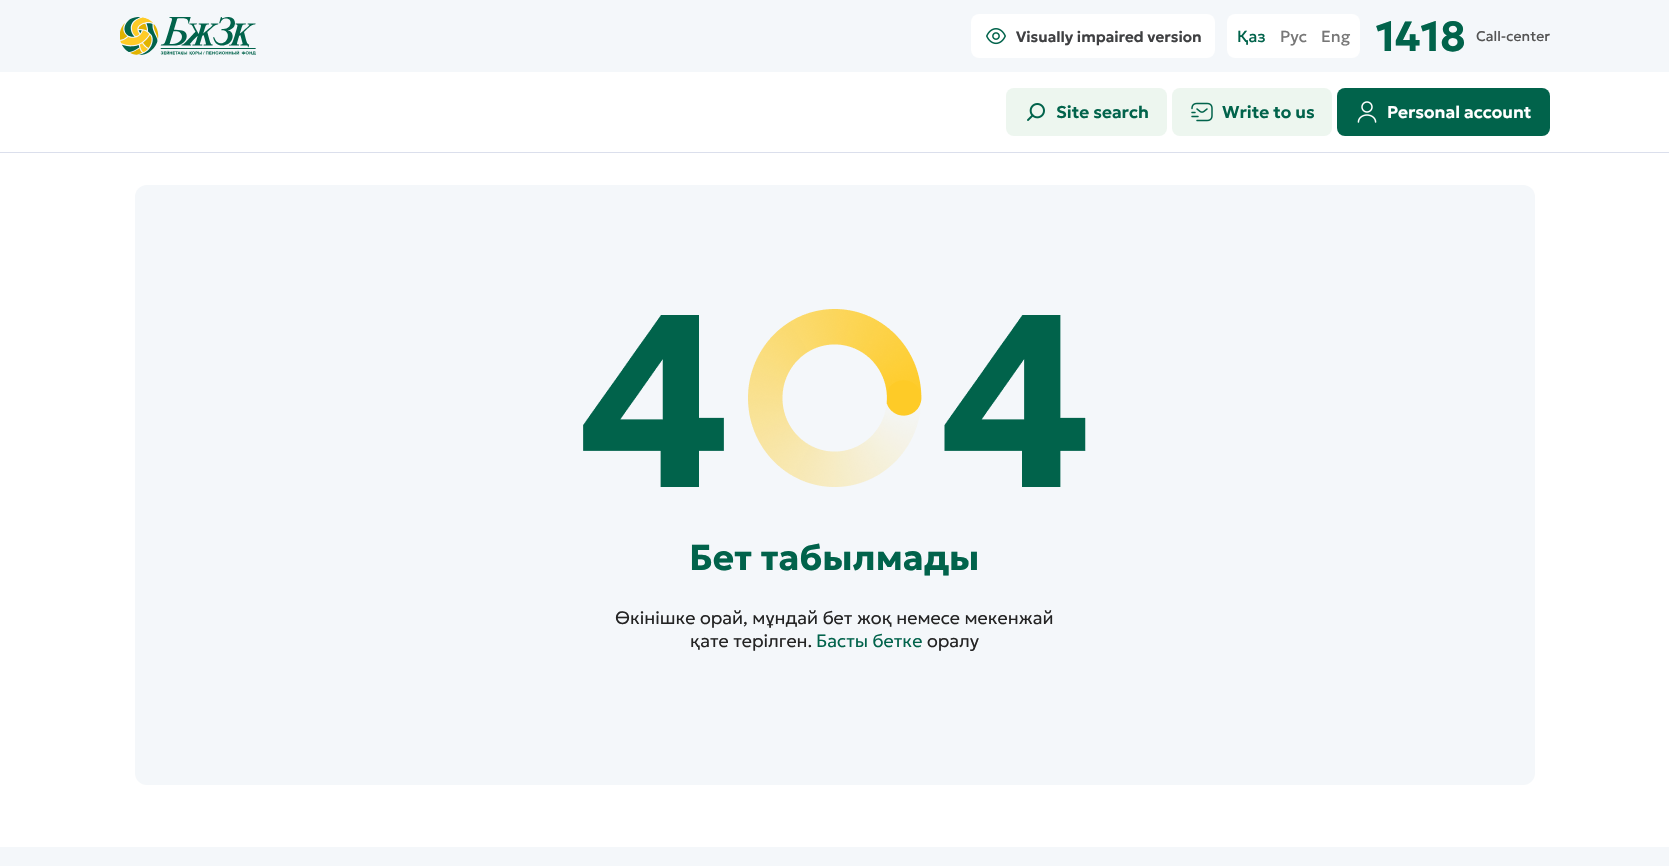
void draw(SkCanvas* canvas) {
    SkPaint paint;
    paint.setAntiAlias(true);
    auto face = [&](const char* family, int weight, float size, bool italic = false) {
        SkFontStyle style(weight, SkFontStyle::kNormal_Width,
            italic ? SkFontStyle::kItalic_Slant : SkFontStyle::kUpright_Slant);
        SkFont result(fontMgr->matchFamilyStyle(family, style), size);
        result.setSubpixel(true);
        return result;
    };
    auto write = [&](const char* s, float x, float y, const SkFont& font, SkColor color) {
        SkPaint ink(SkColor4f::FromColor(color));
        ink.setAntiAlias(true);
        canvas->drawString(s, x, y, font, ink);
    };
    auto block = [&](float x, float y, float w, float h, SkColor color) {
        SkPaint ink(SkColor4f::FromColor(color));
        ink.setAntiAlias(true);
        canvas->drawRect(SkRect::MakeXYWH(x, y, w, h), ink);
    };
    auto card = [&](float x, float y, float w, float h, float radius, SkColor color) {
        SkPaint ink(SkColor4f::FromColor(color));
        ink.setAntiAlias(true);
        canvas->drawRoundRect(SkRect::MakeXYWH(x, y, w, h), radius, radius, ink);
    };
    auto paste = [&](const char* path, float x, float y, float w, float h) {
        auto image = SkImages::DeferredFromEncodedData(SkData::MakeFromFileName(path));
        canvas->drawImageRect(image, SkRect::MakeXYWH(x, y, w, h), SkSamplingOptions());
    };
    canvas->clear(SK_ColorWHITE);
    block(0, 0, 1669, 72, SkColorSetRGB(244, 247, 250));
    paste("pic1.png", 120, 17, 136, 38);
    card(971, 14, 244, 44, 8, SK_ColorWHITE);
    paste("pic2.png", 986, 28, 20, 17);
    auto kFont1 = face("Geologica", 600, 15);
    write("Visually impaired version", 1016, 42, kFont1, SkColorSetRGB(63, 64, 66));
    card(1227, 14, 133, 44, 8, SK_ColorWHITE);
    auto kFont2 = face("Geologica", 400, 16);
    write("Қаз", 1237, 42, kFont2, SkColorSetRGB(1, 99, 75));
    write("Рус", 1280, 42, kFont2, SkColorSetRGB(119, 119, 119));
    write("Eng", 1321, 42, kFont2, SkColorSetRGB(119, 119, 119));
    auto kFont3 = face("Geologica", 700, 42);
    write("1418", 1376, 51, kFont3, SkColorSetRGB(1, 99, 75));
    auto kFont4 = face("Geologica", 400, 14);
    write("Call-center", 1476, 41, kFont4, SkColorSetRGB(85, 85, 85));
    block(0, 152, 1669, 1, SkColorSetRGB(219, 223, 236));
    card(1006, 88, 161, 48, 8, SkColorSetRGB(237, 246, 239));
    paste("pic3.png", 1027, 103, 18, 18);
    auto kFont5 = face("Geologica", 600, 17);
    write("Site search", 1056, 118, kFont5, SkColorSetRGB(1, 99, 75));
    card(1172, 88, 160, 48, 8, SkColorSetRGB(237, 246, 239));
    paste("pic4.png", 1191, 102, 22, 20);
    write("Write to us", 1222, 118, kFont5, SkColorSetRGB(1, 99, 75));
    card(1337, 88, 213, 48, 8, SkColorSetRGB(1, 99, 75));
    paste("pic5.png", 1357, 101, 20, 22);
    write("Personal account", 1387, 118, kFont5, SK_ColorWHITE);
    card(135, 185, 1400, 600, 12, SkColorSetRGB(244, 247, 250));
    paste("pic6.png", 583, 309, 503, 178);
    auto kFont6 = face("Geologica", 700, 36);
    write("Бет табылмады", 689, 570, kFont6, SkColorSetRGB(1, 99, 75));
    auto kFont7 = face("Geologica", 300, 18);
    write("Өкінішке орай, мұндай бет жоқ немесе мекенжай", 615, 624, kFont7, SkColorSetRGB(36, 36, 36));
    write("қате терілген.", 690, 647, kFont7, SkColorSetRGB(36, 36, 36));
    write("Басты бетке", 816, 647, kFont7, SkColorSetRGB(1, 99, 75));
    write("оралу", 927, 647, kFont7, SkColorSetRGB(36, 36, 36));
    block(0, 847, 1669, 19, SkColorSetRGB(244, 247, 250));
}
